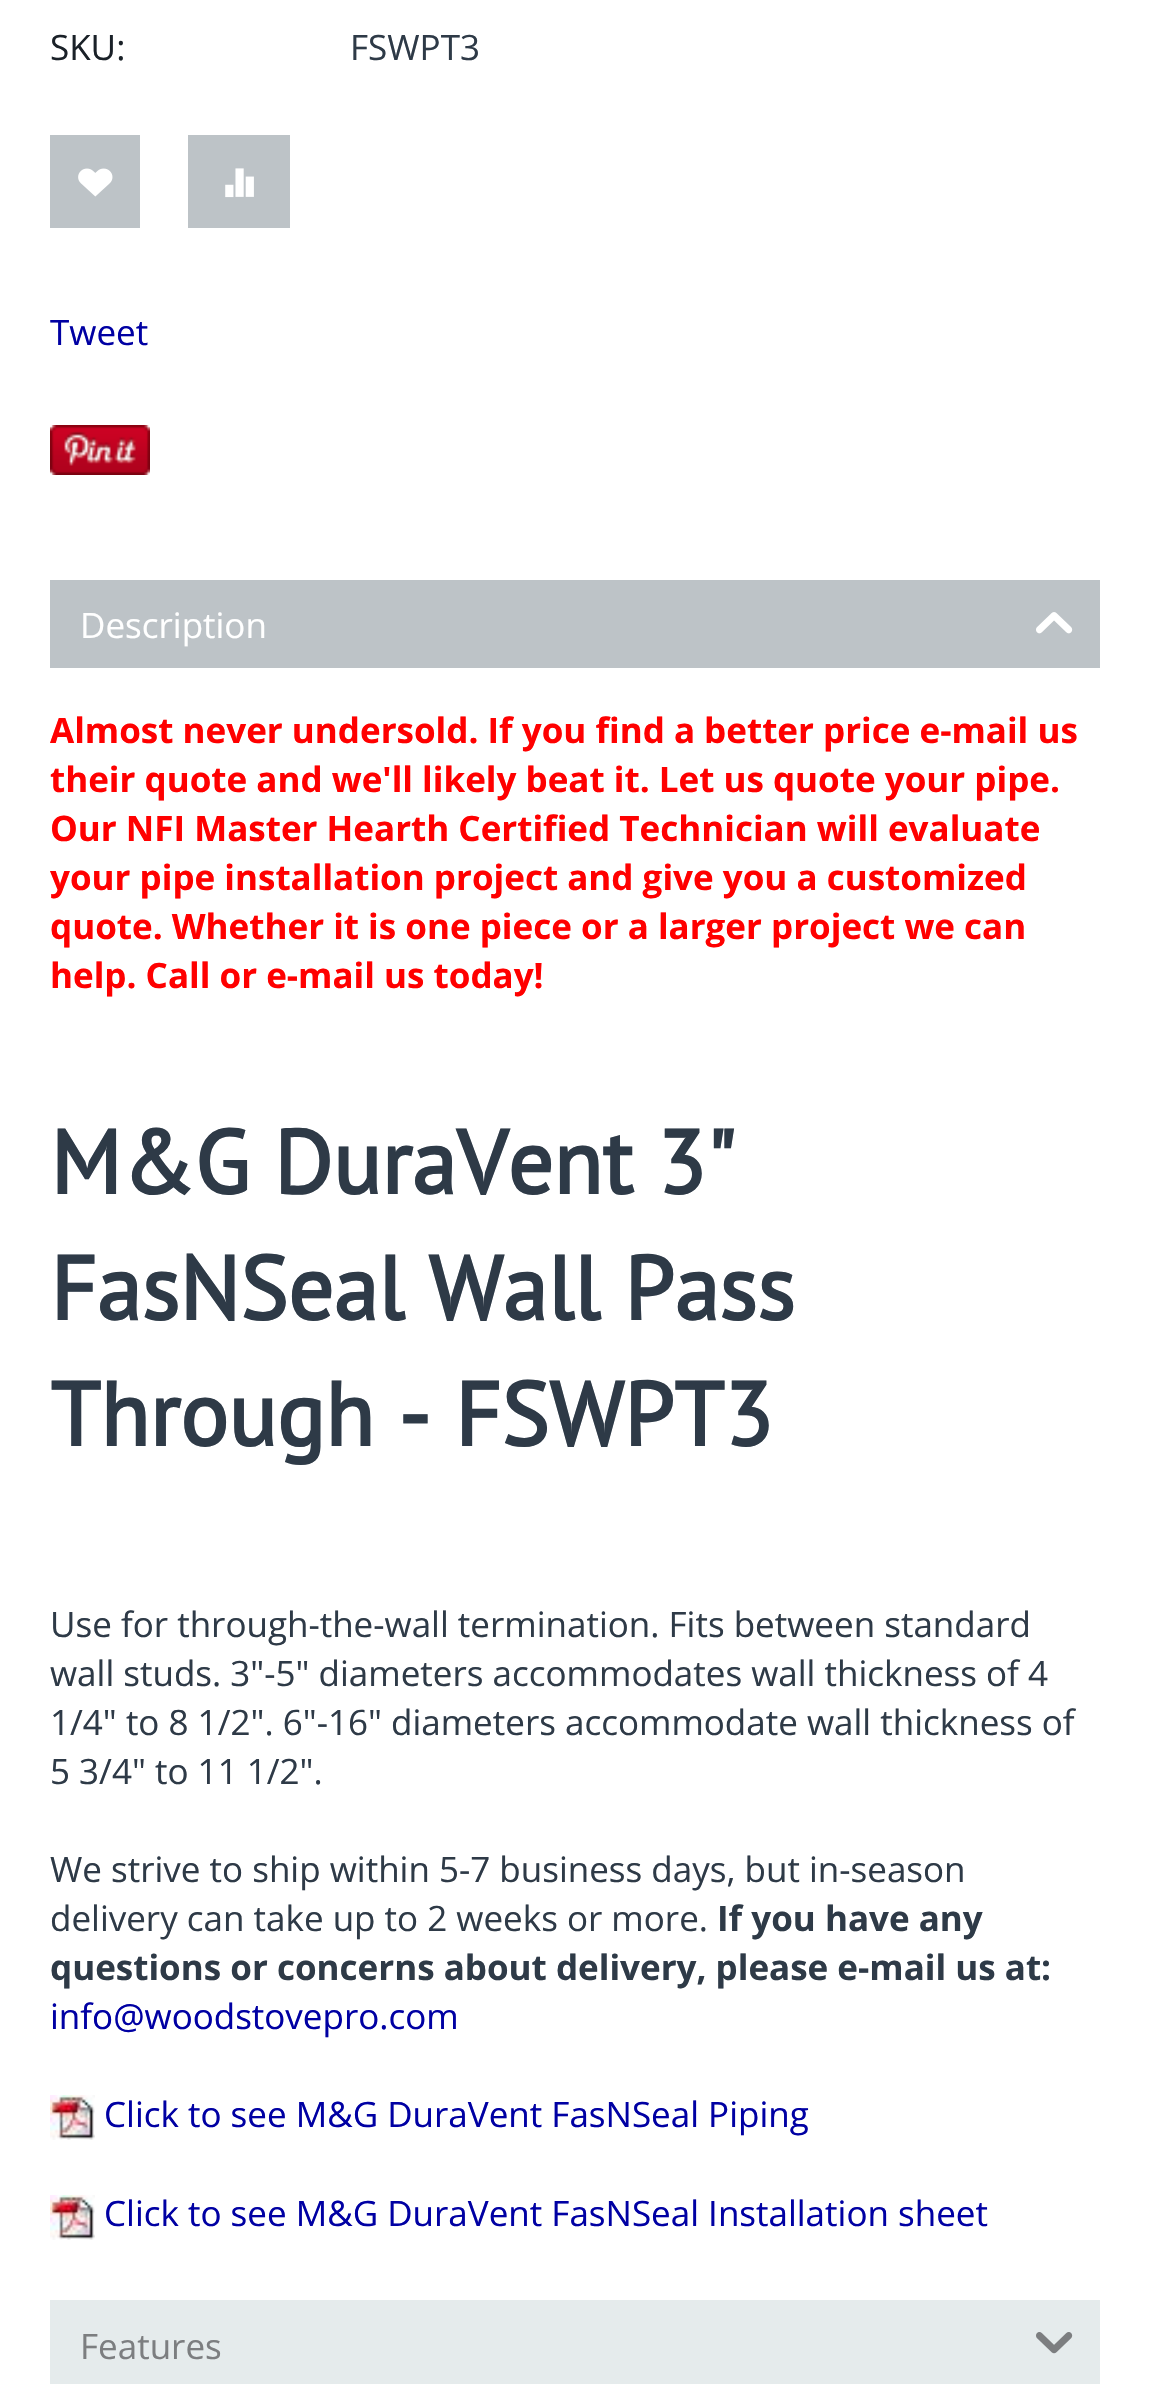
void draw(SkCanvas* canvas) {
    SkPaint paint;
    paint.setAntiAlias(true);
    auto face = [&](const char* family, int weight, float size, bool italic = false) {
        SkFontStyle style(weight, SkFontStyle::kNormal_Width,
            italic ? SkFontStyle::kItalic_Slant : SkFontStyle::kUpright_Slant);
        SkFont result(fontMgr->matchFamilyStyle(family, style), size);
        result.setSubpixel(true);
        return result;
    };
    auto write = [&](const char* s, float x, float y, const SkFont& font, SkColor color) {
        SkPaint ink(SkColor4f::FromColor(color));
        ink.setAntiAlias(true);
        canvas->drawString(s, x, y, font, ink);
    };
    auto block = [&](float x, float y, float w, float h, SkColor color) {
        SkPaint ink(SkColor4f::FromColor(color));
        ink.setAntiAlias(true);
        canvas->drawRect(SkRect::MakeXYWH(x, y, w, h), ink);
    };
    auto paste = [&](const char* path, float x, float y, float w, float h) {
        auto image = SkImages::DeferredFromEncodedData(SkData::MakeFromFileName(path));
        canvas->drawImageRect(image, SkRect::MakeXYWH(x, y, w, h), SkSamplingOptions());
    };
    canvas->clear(SK_ColorWHITE);
    auto kFont1 = face("Open Sans", 400, 35);
    write("SKU:", 50, 60, kFont1, SkColorSetRGB(26, 33, 40));
    write("FSWPT3", 350, 60, kFont1, SkColorSetRGB(46, 58, 71));
    block(50, 135, 90, 93, SkColorSetRGB(189, 195, 199));
    paste("pic1.png", 78, 168, 35, 29);
    block(188, 135, 102, 93, SkColorSetRGB(189, 195, 199));
    paste("pic2.png", 225, 168, 29, 30);
    write("Tweet", 50, 345, kFont1, SkColorSetRGB(0, 0, 163));
    paste("pic3.png", 50, 425, 100, 50);
    block(50, 580, 1050, 88, SkColorSetRGB(189, 195, 199));
    write("Description", 80, 638, kFont1, SK_ColorWHITE);
    paste("pic4.png", 1036, 612, 37, 22);
    auto kFont2 = face("Open Sans", 700, 35);
    write("Almost never undersold. If you find a better price e-mail us", 50, 743, kFont2, SkColorSetRGB(255, 0, 0));
    write("their quote and we'll likely beat it. Let us quote your pipe.", 50, 792, kFont2, SkColorSetRGB(255, 0, 0));
    write("Our NFI Master Hearth Certified Technician will evaluate", 50, 841, kFont2, SkColorSetRGB(255, 0, 0));
    write("your pipe installation project and give you a customized", 50, 890, kFont2, SkColorSetRGB(255, 0, 0));
    write("quote. Whether it is one piece or a larger project we can", 50, 939, kFont2, SkColorSetRGB(255, 0, 0));
    write("help. Call or e-mail us today!", 50, 988, kFont2, SkColorSetRGB(255, 0, 0));
    auto kFont3 = face("PT Sans", 700, 90);
    write("M&G DuraVent 3\"", 50, 1194, kFont3, SkColorSetRGB(46, 58, 71));
    write("FasNSeal Wall Pass", 50, 1320, kFont3, SkColorSetRGB(46, 58, 71));
    write("Through - FSWPT3", 50, 1446, kFont3, SkColorSetRGB(46, 58, 71));
    write("Use for through-the-wall termination. Fits between standard", 50, 1637, kFont1, SkColorSetRGB(46, 58, 71));
    write("wall studs. 3\"-5\" diameters accommodates wall thickness of 4", 50, 1686, kFont1, SkColorSetRGB(46, 58, 71));
    write("1/4\" to 8 1/2\". 6\"-16\" diameters accommodate wall thickness of", 50, 1735, kFont1, SkColorSetRGB(46, 58, 71));
    write("5 3/4\" to 11 1/2\".", 50, 1784, kFont1, SkColorSetRGB(46, 58, 71));
    write("We strive to ship within 5-7 business days, but in-season", 50, 1882, kFont1, SkColorSetRGB(46, 58, 71));
    write("delivery can take up to 2 weeks or more.", 50, 1931, kFont1, SkColorSetRGB(46, 58, 71));
    write("If you have any", 717, 1931, kFont2, SkColorSetRGB(46, 58, 71));
    write("questions or concerns about delivery, please e-mail us at:", 50, 1980, kFont2, SkColorSetRGB(46, 58, 71));
    write("info@woodstovepro.com", 50, 2029, kFont1, SkColorSetRGB(0, 0, 163));
    paste("pic5.png", 50, 2095, 45, 45);
    write("Click to see M&G DuraVent FasNSeal Piping", 104, 2127, kFont1, SkColorSetRGB(0, 0, 163));
    paste("pic5.png", 50, 2195, 45, 45);
    write("Click to see M&G DuraVent FasNSeal Installation sheet", 104, 2226, kFont1, SkColorSetRGB(0, 0, 163));
    block(50, 2300, 1050, 84, SkColorSetRGB(229, 235, 236));
    write("Features", 80, 2359, kFont1, SkColorSetRGB(124, 126, 128));
    paste("pic6.png", 1036, 2332, 37, 22);
}
